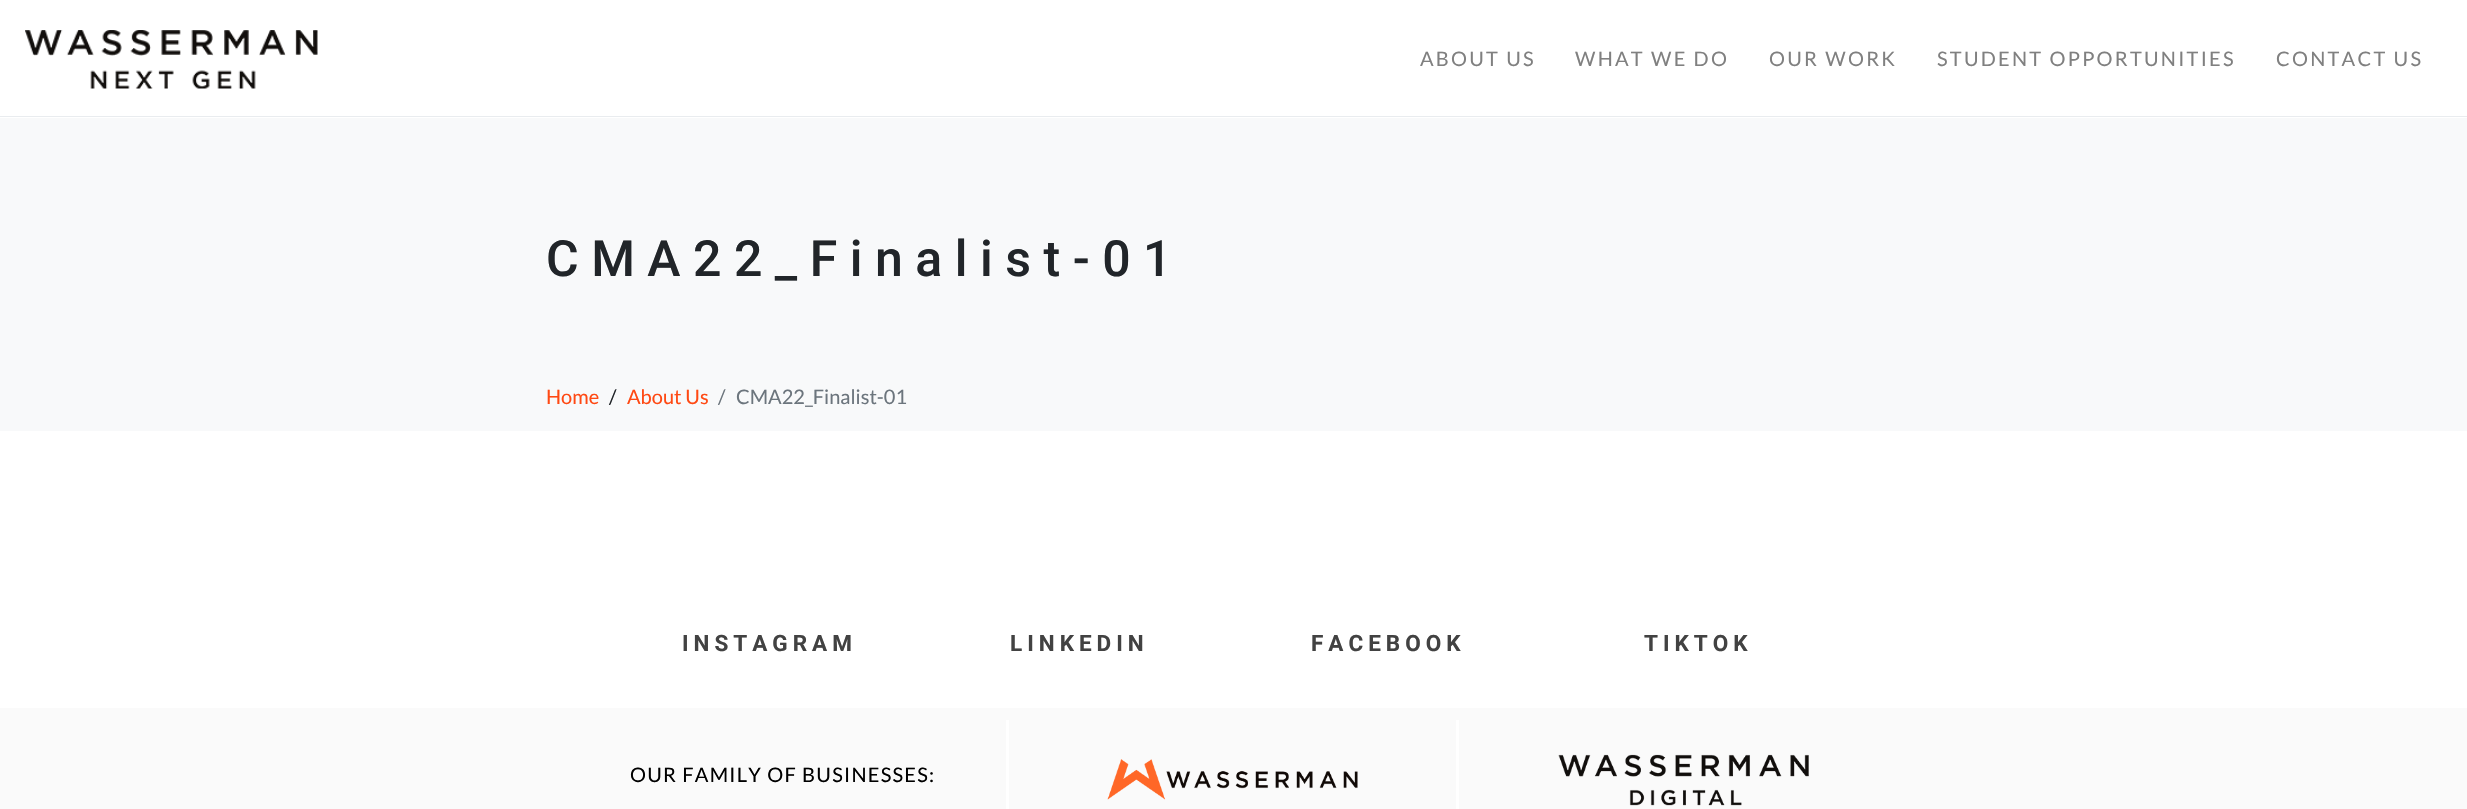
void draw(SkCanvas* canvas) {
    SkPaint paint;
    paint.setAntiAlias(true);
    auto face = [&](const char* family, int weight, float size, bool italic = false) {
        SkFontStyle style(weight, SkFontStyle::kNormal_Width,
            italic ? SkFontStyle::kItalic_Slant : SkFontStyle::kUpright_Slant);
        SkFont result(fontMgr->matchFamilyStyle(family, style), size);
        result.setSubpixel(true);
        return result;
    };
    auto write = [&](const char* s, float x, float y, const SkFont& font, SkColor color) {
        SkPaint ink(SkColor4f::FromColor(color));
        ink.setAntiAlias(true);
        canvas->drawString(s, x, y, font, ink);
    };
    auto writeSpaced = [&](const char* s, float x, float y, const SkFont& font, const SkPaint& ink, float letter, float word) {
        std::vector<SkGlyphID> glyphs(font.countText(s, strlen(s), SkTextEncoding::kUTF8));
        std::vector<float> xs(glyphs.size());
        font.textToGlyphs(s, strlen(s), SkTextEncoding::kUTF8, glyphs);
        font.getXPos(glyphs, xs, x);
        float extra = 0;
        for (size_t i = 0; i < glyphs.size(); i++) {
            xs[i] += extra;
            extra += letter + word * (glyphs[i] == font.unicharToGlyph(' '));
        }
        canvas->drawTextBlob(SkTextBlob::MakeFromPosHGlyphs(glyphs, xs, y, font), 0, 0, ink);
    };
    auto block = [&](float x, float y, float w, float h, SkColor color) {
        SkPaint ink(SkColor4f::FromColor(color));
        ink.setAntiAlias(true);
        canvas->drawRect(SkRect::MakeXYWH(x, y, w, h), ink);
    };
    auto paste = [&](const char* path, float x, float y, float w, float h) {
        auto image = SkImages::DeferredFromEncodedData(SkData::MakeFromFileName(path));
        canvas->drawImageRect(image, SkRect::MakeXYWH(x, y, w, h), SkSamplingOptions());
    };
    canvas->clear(SK_ColorWHITE);
    block(0, 116, 2467, 1, SkColorSetRGB(233, 236, 239));
    paste("pic1.png", 25, 30, 293, 59);
    auto kFont1 = face("Lato", 400, 20);
    paint.setColor(SkColorSetRGB(128, 128, 128));
    writeSpaced("ABOUT US", 1420, 66, kFont1, paint, 2.25f, 0);
    writeSpaced("WHAT WE DO", 1575, 66, kFont1, paint, 2.25f, 0);
    writeSpaced("OUR WORK", 1769, 66, kFont1, paint, 2.25f, 0);
    writeSpaced("STUDENT OPPORTUNITIES", 1937, 66, kFont1, paint, 2.25f, 0);
    writeSpaced("CONTACT US", 2276, 66, kFont1, paint, 2.25f, 0);
    block(0, 118, 2467, 313, SkColorSetRGB(248, 249, 250));
    auto kFont2 = face("Roboto", 500, 50);
    paint.setColor(SkColorSetRGB(33, 37, 41));
    writeSpaced("CMA22_Finalist-01", 546, 276, kFont2, paint, 12.5f, 0);
    write("Home", 546, 404, kFont1, SkColorSetRGB(255, 73, 19));
    write("/", 609, 404, kFont1, SkColorSetRGB(33, 37, 41));
    write("About Us", 627, 404, kFont1, SkColorSetRGB(255, 73, 19));
    write("/", 718, 404, kFont1, SkColorSetRGB(108, 117, 125));
    write("CMA22_Finalist-01", 736, 404, kFont1, SkColorSetRGB(108, 117, 125));
    auto kFont3 = face("Roboto", 700, 22.5f);
    paint.setColor(SkColorSetRGB(66, 66, 66));
    writeSpaced("INSTAGRAM", 682, 651, kFont3, paint, 5, 0);
    writeSpaced("LINKEDIN", 1010, 651, kFont3, paint, 5, 0);
    writeSpaced("FACEBOOK", 1311, 651, kFont3, paint, 5, 0);
    writeSpaced("TIKTOK", 1644, 651, kFont3, paint, 5, 0);
    block(0, 708, 2467, 101, SkColorSetRGB(250, 250, 250));
    block(1006, 720, 3, 89, SK_ColorWHITE);
    paint.setColor(SK_ColorBLACK);
    writeSpaced("OUR FAMILY OF BUSINESSES:", 630, 782, kFont1, paint, 1.25f, 0);
    block(1456, 720, 3, 89, SK_ColorWHITE);
    paste("pic2.png", 1107, 759, 251, 41);
    paste("pic3.png", 1558, 754, 251, 52);
}
